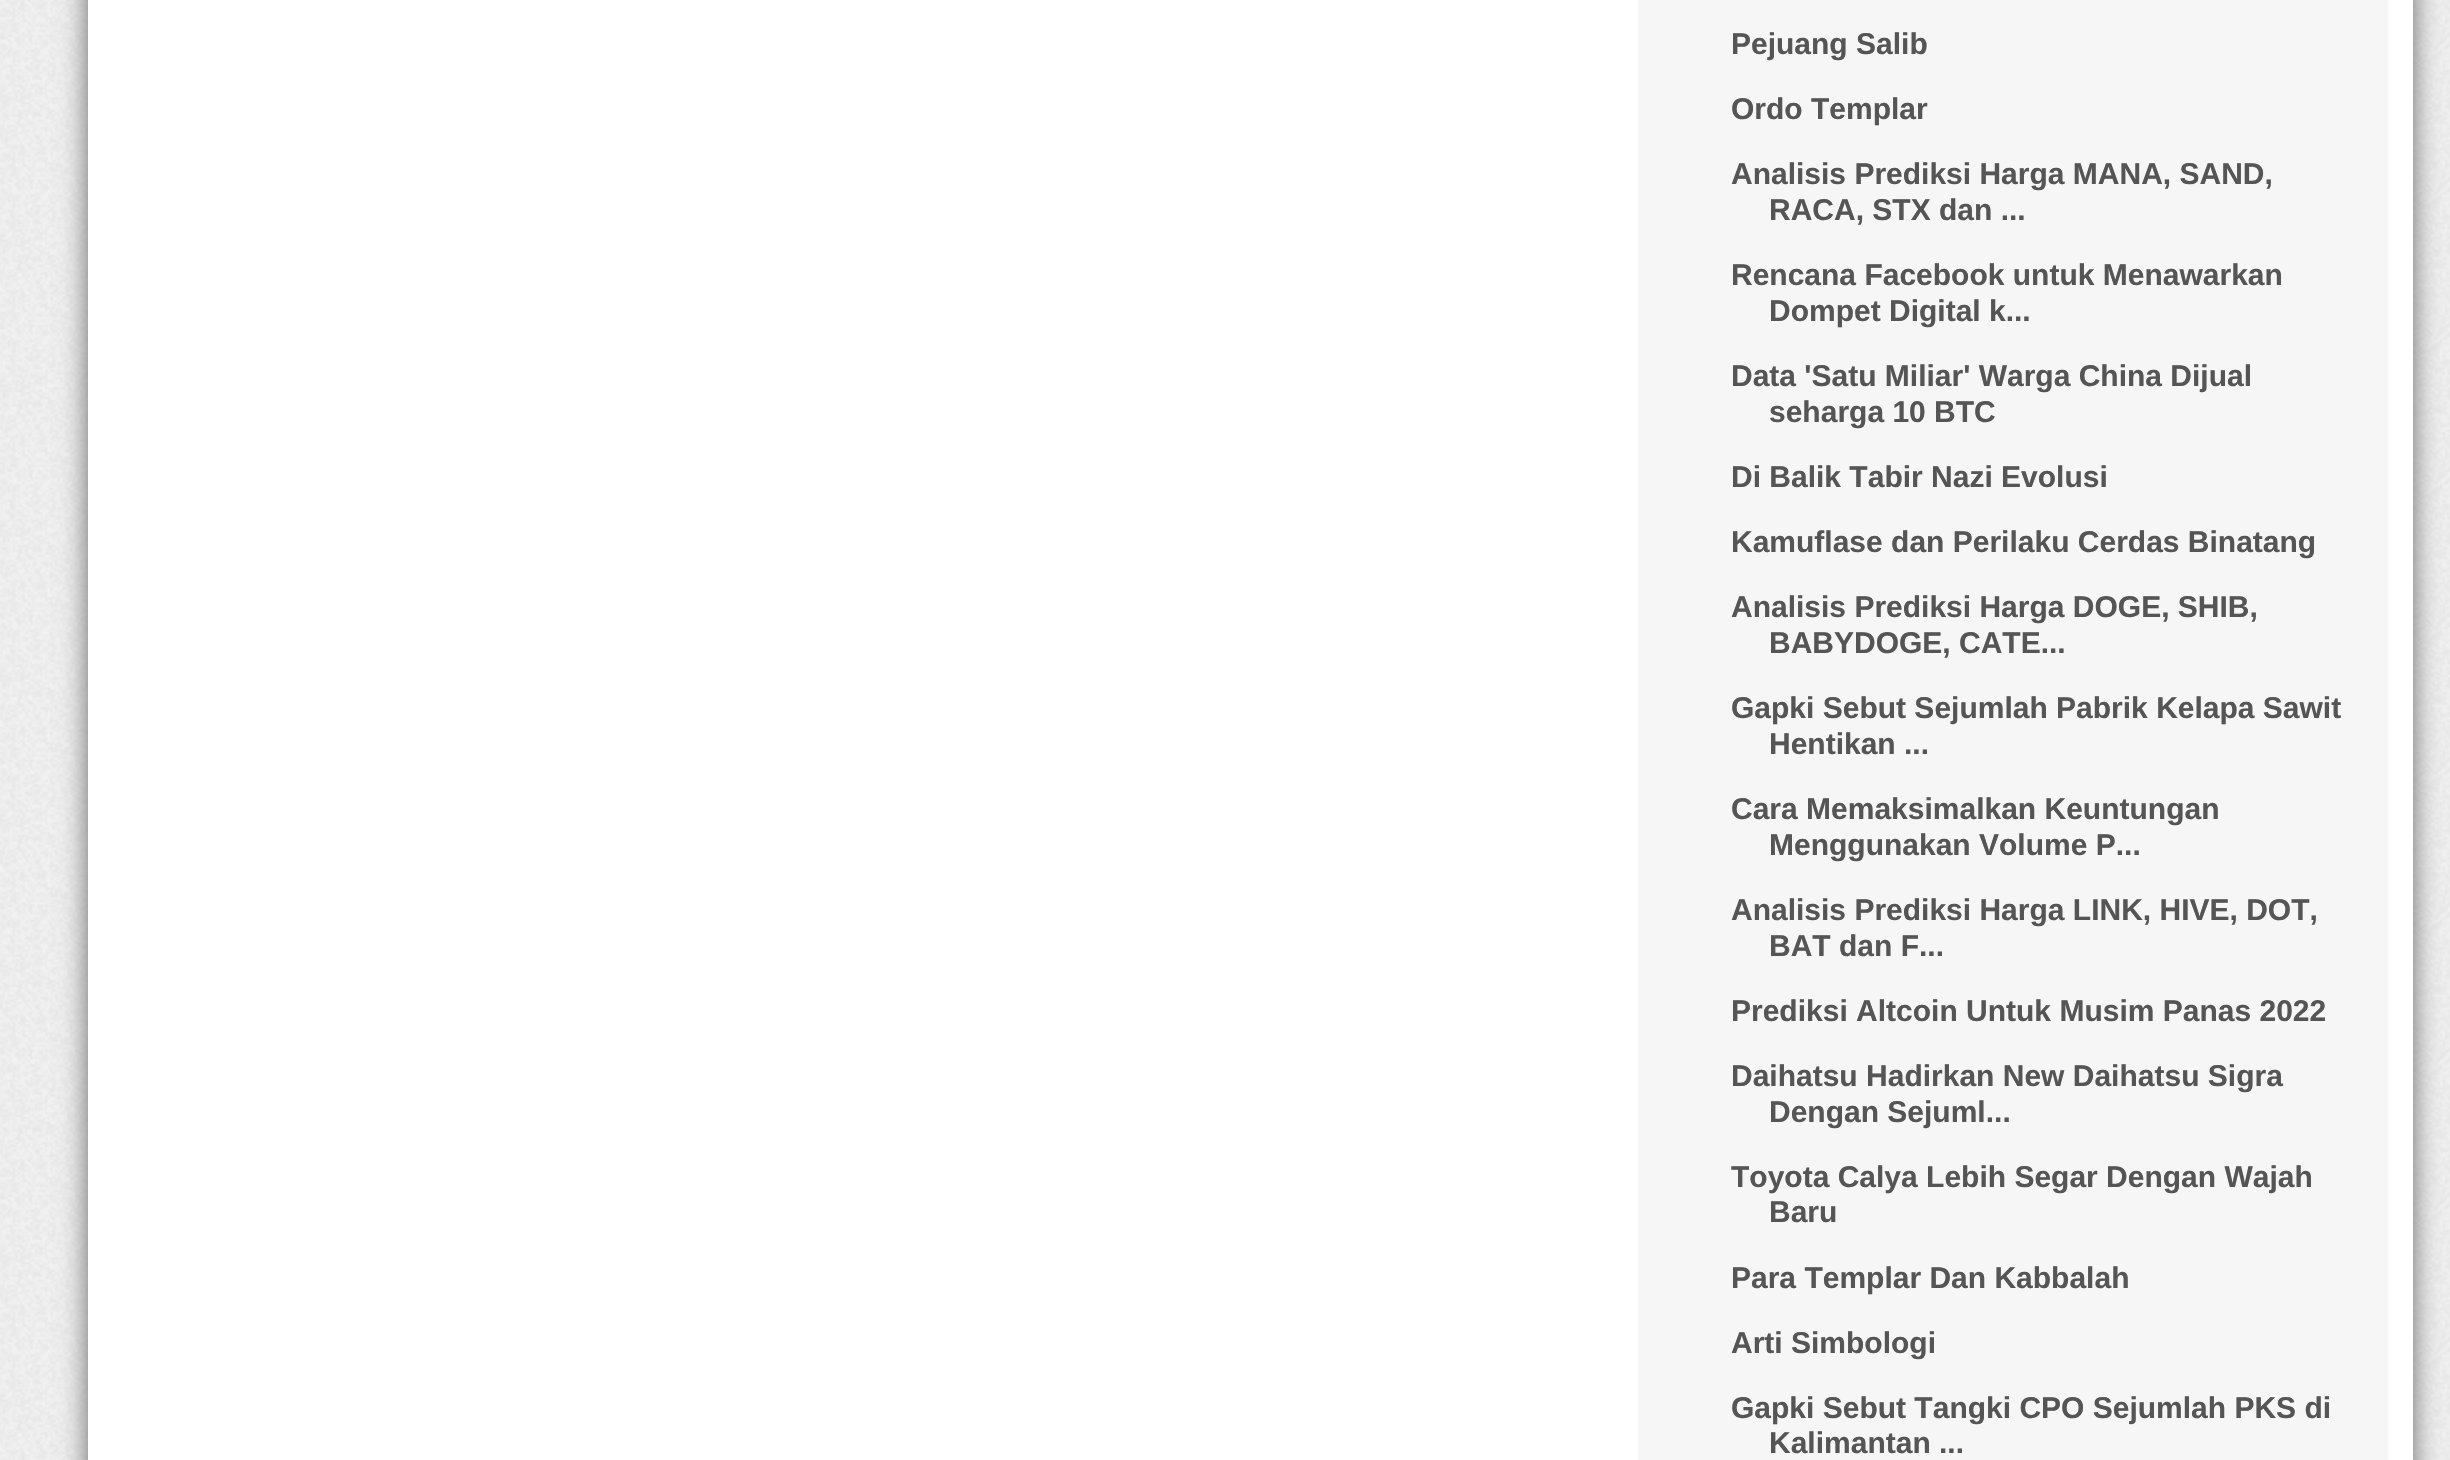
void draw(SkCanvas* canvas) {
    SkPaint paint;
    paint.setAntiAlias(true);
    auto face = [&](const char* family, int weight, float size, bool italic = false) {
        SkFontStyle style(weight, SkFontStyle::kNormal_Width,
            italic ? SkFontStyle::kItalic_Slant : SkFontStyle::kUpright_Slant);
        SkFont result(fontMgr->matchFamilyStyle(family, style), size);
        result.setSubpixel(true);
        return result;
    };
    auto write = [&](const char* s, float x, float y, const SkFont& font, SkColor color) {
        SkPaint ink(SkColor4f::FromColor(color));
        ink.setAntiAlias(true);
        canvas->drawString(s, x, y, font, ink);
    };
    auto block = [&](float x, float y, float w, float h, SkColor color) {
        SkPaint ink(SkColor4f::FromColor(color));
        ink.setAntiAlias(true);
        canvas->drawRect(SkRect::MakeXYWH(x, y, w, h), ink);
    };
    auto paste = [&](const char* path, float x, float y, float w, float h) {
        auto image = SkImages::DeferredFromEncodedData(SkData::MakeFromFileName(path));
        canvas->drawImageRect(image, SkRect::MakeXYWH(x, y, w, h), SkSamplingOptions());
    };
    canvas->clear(SK_ColorWHITE);
    paste("pic1.png", 0, 0, 2450, 1460);
    paint.setColor(SkColorSetRGB(102, 102, 102));
    paint.setMaskFilter(SkMaskFilter::MakeBlur(kNormal_SkBlurStyle, 12.5f));
    canvas->drawRect(SkRect::MakeXYWH(88, -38, 2325, 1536), paint);
    paint.setMaskFilter(nullptr);
    block(88, 0, 2325, 1460, SK_ColorWHITE);
    block(1638, 0, 750, 1460, SkColorSetRGB(246, 246, 246));
    auto kFont1 = face("Liberation Sans", 700, 30);
    write("Pejuang Salib", 1731, 54, kFont1, SkColorSetRGB(85, 85, 85));
    write("Ordo Templar", 1731, 119, kFont1, SkColorSetRGB(85, 85, 85));
    write("Analisis Prediksi Harga MANA, SAND,", 1731, 184, kFont1, SkColorSetRGB(85, 85, 85));
    write("RACA, STX dan ...", 1769, 220, kFont1, SkColorSetRGB(85, 85, 85));
    write("Rencana Facebook untuk Menawarkan", 1731, 285, kFont1, SkColorSetRGB(85, 85, 85));
    write("Dompet Digital k...", 1769, 321, kFont1, SkColorSetRGB(85, 85, 85));
    write("Data 'Satu Miliar' Warga China Dijual", 1731, 386, kFont1, SkColorSetRGB(85, 85, 85));
    write("seharga 10 BTC", 1769, 422, kFont1, SkColorSetRGB(85, 85, 85));
    write("Di Balik Tabir Nazi Evolusi", 1731, 487, kFont1, SkColorSetRGB(85, 85, 85));
    write("Kamuflase dan Perilaku Cerdas Binatang", 1731, 552, kFont1, SkColorSetRGB(85, 85, 85));
    write("Analisis Prediksi Harga DOGE, SHIB,", 1731, 617, kFont1, SkColorSetRGB(85, 85, 85));
    write("BABYDOGE, CATE...", 1769, 653, kFont1, SkColorSetRGB(85, 85, 85));
    write("Gapki Sebut Sejumlah Pabrik Kelapa Sawit", 1731, 718, kFont1, SkColorSetRGB(85, 85, 85));
    write("Hentikan ...", 1769, 754, kFont1, SkColorSetRGB(85, 85, 85));
    write("Cara Memaksimalkan Keuntungan", 1731, 819, kFont1, SkColorSetRGB(85, 85, 85));
    write("Menggunakan Volume P...", 1769, 855, kFont1, SkColorSetRGB(85, 85, 85));
    write("Analisis Prediksi Harga LINK, HIVE, DOT,", 1731, 920, kFont1, SkColorSetRGB(85, 85, 85));
    write("BAT dan F...", 1769, 956, kFont1, SkColorSetRGB(85, 85, 85));
    write("Prediksi Altcoin Untuk Musim Panas 2022", 1731, 1021, kFont1, SkColorSetRGB(85, 85, 85));
    write("Daihatsu Hadirkan New Daihatsu Sigra", 1731, 1086, kFont1, SkColorSetRGB(85, 85, 85));
    write("Dengan Sejuml...", 1769, 1122, kFont1, SkColorSetRGB(85, 85, 85));
    write("Toyota Calya Lebih Segar Dengan Wajah", 1731, 1187, kFont1, SkColorSetRGB(85, 85, 85));
    write("Baru", 1769, 1222, kFont1, SkColorSetRGB(85, 85, 85));
    write("Para Templar Dan Kabbalah", 1731, 1288, kFont1, SkColorSetRGB(85, 85, 85));
    write("Arti Simbologi", 1731, 1353, kFont1, SkColorSetRGB(85, 85, 85));
    write("Gapki Sebut Tangki CPO Sejumlah PKS di", 1731, 1418, kFont1, SkColorSetRGB(85, 85, 85));
    write("Kalimantan ...", 1769, 1453, kFont1, SkColorSetRGB(85, 85, 85));
}
